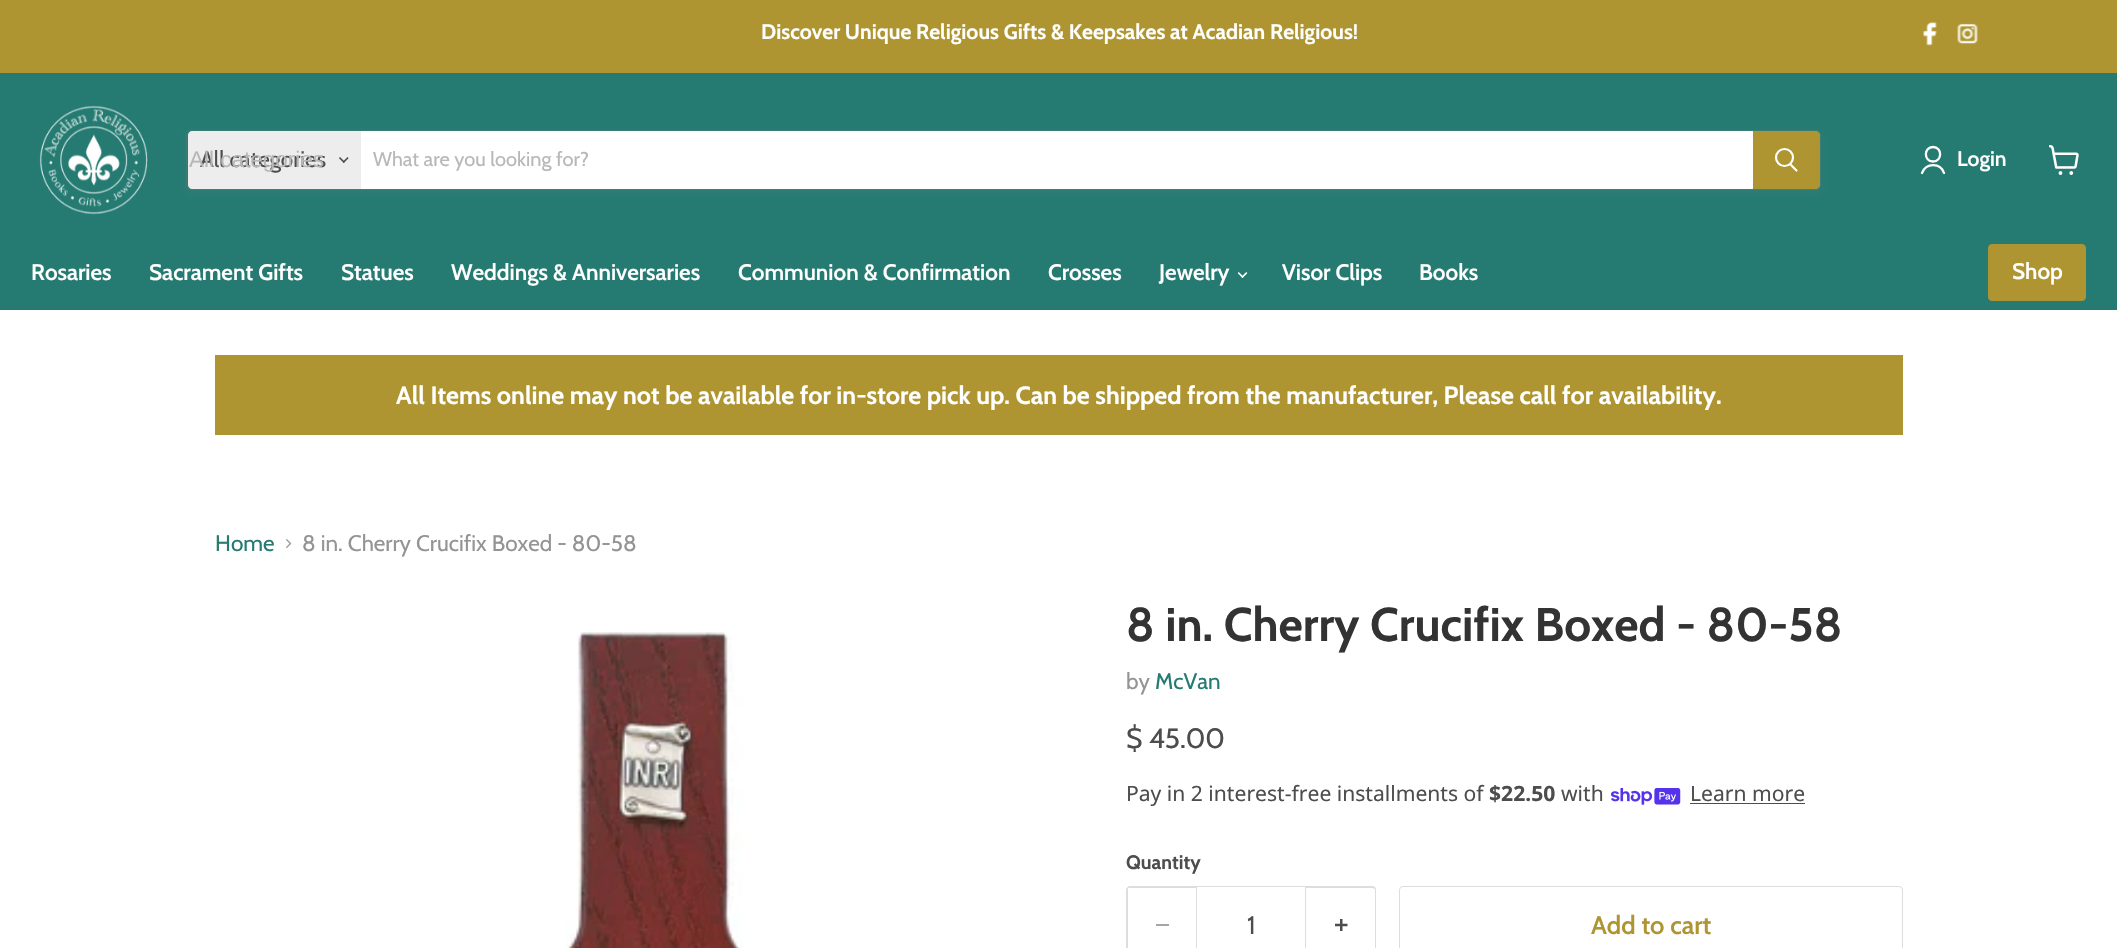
void draw(SkCanvas* canvas) {
    SkPaint paint;
    paint.setAntiAlias(true);
    auto face = [&](const char* family, int weight, float size, bool italic = false) {
        SkFontStyle style(weight, SkFontStyle::kNormal_Width,
            italic ? SkFontStyle::kItalic_Slant : SkFontStyle::kUpright_Slant);
        SkFont result(fontMgr->matchFamilyStyle(family, style), size);
        result.setSubpixel(true);
        return result;
    };
    auto write = [&](const char* s, float x, float y, const SkFont& font, SkColor color) {
        SkPaint ink(SkColor4f::FromColor(color));
        ink.setAntiAlias(true);
        canvas->drawString(s, x, y, font, ink);
    };
    auto block = [&](float x, float y, float w, float h, SkColor color) {
        SkPaint ink(SkColor4f::FromColor(color));
        ink.setAntiAlias(true);
        canvas->drawRect(SkRect::MakeXYWH(x, y, w, h), ink);
    };
    auto paste = [&](const char* path, float x, float y, float w, float h) {
        auto image = SkImages::DeferredFromEncodedData(SkData::MakeFromFileName(path));
        canvas->drawImageRect(image, SkRect::MakeXYWH(x, y, w, h), SkSamplingOptions());
    };
    canvas->clear(SK_ColorWHITE);
    block(0, 0, 2117, 73, SkColorSetRGB(174, 149, 49));
    auto kFont1 = face("Cabin", 700, 21.1f);
    write("Discover Unique Religious Gifts & Keepsakes at Acadian Religious!", 761, 39, kFont1, SK_ColorWHITE);
    paste("pic1.png", 1923, 22, 14, 24);
    paste("pic2.png", 1957, 23, 21, 21);
    block(0, 73, 2117, 237, SkColorSetRGB(37, 123, 114));
    paste("pic3.png", 39, 105, 109, 110);
    paint.setColor(SkColorSetARGB(28, 128, 128, 128));
    paint.setMaskFilter(SkMaskFilter::MakeBlur(kNormal_SkBlurStyle, 2));
    canvas->drawRoundRect(SkRect::MakeXYWH(186, 133, 1635, 60), 5, 5, paint);
    paint.setMaskFilter(nullptr);
    paint.setStyle(SkPaint::kStroke_Style);
    paint.setStrokeWidth(1);
    paint.setColor(SkColorSetARGB(51, 128, 128, 128));
    canvas->drawRoundRect(SkRect::MakeXYWH(186.5f, 130.5f, 1634, 59), 4.5f, 4.5f, paint);
    paint.setStyle(SkPaint::kFill_Style);
    paint.setColor(SkColorSetRGB(237, 237, 237));
    canvas->drawPath(SkPathBuilder().moveTo(192, 131).lineTo(361, 131).lineTo(361, 189).lineTo(192, 189).cubicTo(190, 189, 188, 187, 188, 185).lineTo(188, 135).cubicTo(188, 133, 190, 131, 192, 131).close().detach(), paint);
    auto kFont2 = face("Cabin", 400, 22.5f);
    write("All categories", 200, 167, kFont2, SkColorSetRGB(77, 77, 77));
    auto kFont3 = face("Liberation Sans", 400, 22.5f);
    write("All categories", 189, 167, kFont3, SkColorSetRGB(184, 184, 184));
    paste("pic4.png", 339, 157, 10, 6);
    block(361, 131, 1392, 58, SK_ColorWHITE);
    auto kFont4 = face("Cabin", 400, 20);
    write("What are you looking for?", 373, 166, kFont4, SkColorSetRGB(184, 184, 184));
    paint.setColor(SkColorSetRGB(174, 149, 49));
    canvas->drawPath(SkPathBuilder().moveTo(1753.5f, 131.5f).lineTo(1816, 131.5f).cubicTo(1818, 131.5f, 1819.5f, 133, 1819.5f, 135).lineTo(1819.5f, 185).cubicTo(1819.5f, 187, 1818, 188.5f, 1816, 188.5f).lineTo(1753.5f, 188.5f).close().detach(), paint);
    paint.setStyle(SkPaint::kStroke_Style);
    canvas->drawPath(SkPathBuilder().moveTo(1753.5f, 131.5f).lineTo(1816, 131.5f).cubicTo(1818, 131.5f, 1819.5f, 133, 1819.5f, 135).lineTo(1819.5f, 185).cubicTo(1819.5f, 187, 1818, 188.5f, 1816, 188.5f).lineTo(1753.5f, 188.5f).close().detach(), paint);
    paint.setStrokeWidth(2.2f);
    paint.setStrokeCap(SkPaint::kRound_Cap);
    paint.setColor(SK_ColorWHITE);
    canvas->drawPath(SkPathBuilder().moveTo(1796.5f, 170.5f).lineTo(1790.5f, 164.5f).detach(), paint);
    paint.setStrokeCap(SkPaint::kButt_Cap);
    canvas->drawCircle(1784.5f, 157.5f, 8.5f, paint);
    paint.setStrokeWidth(2.3f);
    paint.setStrokeCap(SkPaint::kRound_Cap);
    paint.setStrokeJoin(SkPaint::kRound_Join);
    canvas->drawPath(SkPathBuilder().moveTo(1933, 161.5f).cubicTo(1942.5f, 161.5f, 1942.5f, 147, 1933, 147).cubicTo(1923.5f, 147, 1923.5f, 161.5f, 1933, 161.5f).close().moveTo(1944, 173).cubicTo(1940.5f, 162.5f, 1926, 162.5f, 1922, 173).detach(), paint);
    auto kFont5 = face("Cabin", 600, 21.1f);
    write("Login", 1957, 166, kFont5, SK_ColorWHITE);
    paste("pic5.png", 2049, 145, 30, 30);
    auto kFont6 = face("Cabin", 600, 22.5f);
    write("Rosaries", 31, 280, kFont6, SK_ColorWHITE);
    write("Sacrament Gifts", 149, 280, kFont6, SK_ColorWHITE);
    write("Statues", 341, 280, kFont6, SK_ColorWHITE);
    write("Weddings & Anniversaries", 451, 280, kFont6, SK_ColorWHITE);
    write("Communion & Confirmation", 738, 280, kFont6, SK_ColorWHITE);
    write("Crosses", 1048, 280, kFont6, SK_ColorWHITE);
    write("Jewelry", 1159, 280, kFont6, SK_ColorWHITE);
    paste("pic6.png", 1238, 272, 10, 6);
    write("Visor Clips", 1282, 280, kFont6, SK_ColorWHITE);
    write("Books", 1419, 280, kFont6, SK_ColorWHITE);
    paint.setStyle(SkPaint::kFill_Style);
    paint.setColor(SkColorSetRGB(174, 149, 49));
    canvas->drawRoundRect(SkRect::MakeXYWH(1988.5f, 244.5f, 97, 56), 3.5f, 3.5f, paint);
    paint.setStyle(SkPaint::kStroke_Style);
    paint.setStrokeWidth(1);
    paint.setStrokeCap(SkPaint::kButt_Cap);
    paint.setStrokeJoin(SkPaint::kMiter_Join);
    canvas->drawRoundRect(SkRect::MakeXYWH(1988.5f, 244.5f, 97, 56), 3.5f, 3.5f, paint);
    write("Shop", 2012, 279, kFont6, SK_ColorWHITE);
    block(215, 355, 1688, 80, SkColorSetRGB(174, 149, 49));
    auto kFont7 = face("Cabin", 700, 25);
    write("All Items online may not be available for in-store pick up. Can be shipped from the manufacturer, Please call for availability.", 396, 404, kFont7, SK_ColorWHITE);
    write("Home", 215, 551, kFont2, SkColorSetRGB(37, 123, 114));
    paste("pic7.png", 286, 539, 6, 9);
    write("8 in. Cherry Crucifix Boxed - 80-58", 302, 551, kFont2, SkColorSetRGB(148, 148, 148));
    paste("pic8.png", 566, 632, 177, 316);
    auto kFont8 = face("Cabin", 700, 47.25f);
    write("8 in. Cherry Crucifix Boxed - 80-58", 1126, 641, kFont8, SkColorSetRGB(51, 51, 51));
    write("by", 1126, 689, kFont2, SkColorSetRGB(148, 148, 148));
    write("McVan", 1155, 689, kFont2, SkColorSetRGB(37, 123, 114));
    auto kFont9 = face("Cabin", 400, 28);
    write("$ 45.00", 1126, 748, kFont9, SkColorSetRGB(77, 77, 77));
    auto kFont10 = face("Noto Sans", 400, 21.1f);
    write("Pay in 2 interest-free installments of", 1126, 801, kFont10, SkColorSetRGB(77, 77, 77));
    auto kFont11 = face("Noto Sans", 700, 21.1f);
    write("$22.50", 1489, 801, kFont11, SkColorSetRGB(77, 77, 77));
    write("with", 1561, 801, kFont10, SkColorSetRGB(77, 77, 77));
    paste("pic9.png", 1611, 788, 70, 17);
    write("Learn more", 1690, 801, kFont10, SkColorSetRGB(77, 77, 77));
    block(1690, 803, 115, 1, SkColorSetRGB(77, 77, 77));
    auto kFont12 = face("Cabin", 700, 19.5f);
    write("Quantity", 1126, 869, kFont12, SkColorSetRGB(77, 77, 77));
    paint.setStyle(SkPaint::kFill_Style);
    paint.setColor(SkColorSetRGB(221, 221, 221));
    canvas->drawPath(SkPathBuilder(SkPathFillType::kEvenOdd).moveTo(1130, 886).lineTo(1196, 886).lineTo(1196, 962).lineTo(1130, 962).cubicTo(1128, 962, 1126, 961, 1126, 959).lineTo(1126, 890).cubicTo(1126, 888, 1128, 886, 1130, 886).close().moveTo(1130, 888).lineTo(1196, 888).lineTo(1196, 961).cubicTo(1189, 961, 1130, 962, 1129, 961).lineTo(1128, 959).lineTo(1128, 889).lineTo(1128, 888).close().detach(), paint);
    block(1156, 924, 13, 2, SkColorSetRGB(166, 166, 166));
    paint.setStyle(SkPaint::kStroke_Style);
    canvas->drawRect(SkRect::MakeXYWH(1196.5f, 886.5f, 109, 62), paint);
    auto kFont13 = face("Cabin", 400, 25.5f);
    write("1", 1247, 934, kFont13, SkColorSetRGB(77, 77, 77));
    paint.setStyle(SkPaint::kFill_Style);
    canvas->drawPath(SkPathBuilder(SkPathFillType::kEvenOdd).moveTo(1306, 886).lineTo(1372, 886).cubicTo(1375, 886, 1376, 888, 1376, 890).lineTo(1376, 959).cubicTo(1376, 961, 1375, 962, 1372, 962).lineTo(1306, 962).close().moveTo(1306, 888).lineTo(1372, 888).cubicTo(1374, 888, 1375, 889, 1375, 890).lineTo(1375, 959).cubicTo(1375, 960, 1374, 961, 1372, 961).lineTo(1306, 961).close().detach(), paint);
    paste("pic10.png", 1335, 919, 13, 12);
    paint.setStyle(SkPaint::kStroke_Style);
    canvas->drawRoundRect(SkRect::MakeXYWH(1399.5f, 886.5f, 503, 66), 3.5f, 3.5f, paint);
    auto kFont14 = face("Cabin", 600, 25.5f);
    write("Add to cart", 1591, 934, kFont14, SkColorSetRGB(174, 149, 49));
}
